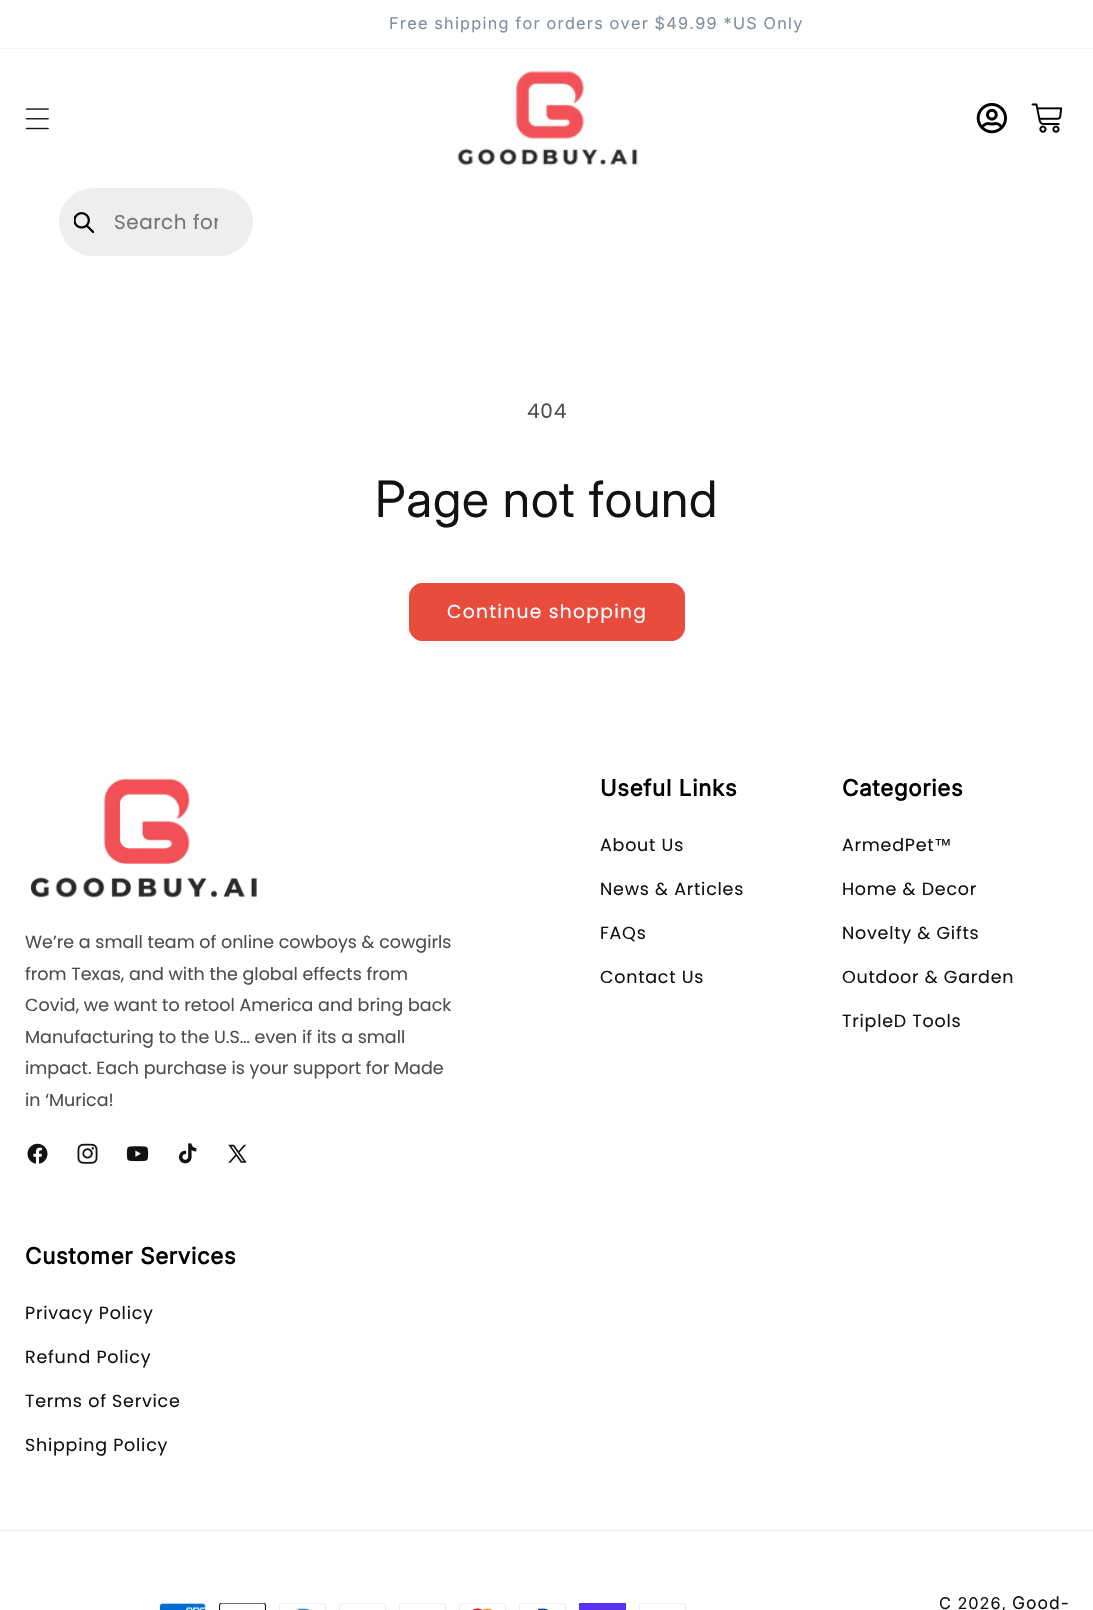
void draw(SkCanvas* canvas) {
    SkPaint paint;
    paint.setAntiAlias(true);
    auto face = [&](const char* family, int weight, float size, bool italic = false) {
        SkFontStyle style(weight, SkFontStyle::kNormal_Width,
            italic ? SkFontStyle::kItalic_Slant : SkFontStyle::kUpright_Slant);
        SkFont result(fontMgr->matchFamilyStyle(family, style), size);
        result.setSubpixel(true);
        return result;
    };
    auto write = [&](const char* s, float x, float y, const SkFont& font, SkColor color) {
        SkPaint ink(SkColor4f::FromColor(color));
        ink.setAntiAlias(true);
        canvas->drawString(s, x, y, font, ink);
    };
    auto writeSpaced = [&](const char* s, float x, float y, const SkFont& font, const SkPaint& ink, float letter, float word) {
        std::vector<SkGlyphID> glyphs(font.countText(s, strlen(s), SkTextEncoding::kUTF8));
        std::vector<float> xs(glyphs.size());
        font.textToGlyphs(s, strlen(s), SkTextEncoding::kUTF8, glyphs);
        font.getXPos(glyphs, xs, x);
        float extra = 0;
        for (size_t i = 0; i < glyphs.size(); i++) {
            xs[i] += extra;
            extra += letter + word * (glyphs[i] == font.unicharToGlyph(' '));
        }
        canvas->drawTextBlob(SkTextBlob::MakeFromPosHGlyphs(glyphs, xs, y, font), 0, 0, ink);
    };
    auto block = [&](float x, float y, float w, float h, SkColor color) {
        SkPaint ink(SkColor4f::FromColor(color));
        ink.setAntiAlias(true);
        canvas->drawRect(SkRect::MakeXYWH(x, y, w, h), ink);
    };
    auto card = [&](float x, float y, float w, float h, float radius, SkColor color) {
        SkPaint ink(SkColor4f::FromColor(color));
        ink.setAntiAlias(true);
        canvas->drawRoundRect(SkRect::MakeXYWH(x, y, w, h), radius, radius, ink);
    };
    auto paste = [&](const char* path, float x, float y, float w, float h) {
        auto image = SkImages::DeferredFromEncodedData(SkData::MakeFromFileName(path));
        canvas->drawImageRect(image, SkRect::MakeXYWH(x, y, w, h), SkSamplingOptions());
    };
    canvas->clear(SK_ColorWHITE);
    block(0, 48, 1093, 1, SkColorSetRGB(253, 241, 239));
    auto kFont1 = face("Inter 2", 400, 16.25f);
    paint.setColor(SkColorSetRGB(129, 142, 160));
    writeSpaced("Free shipping for orders over $49.99 *US Only", 389, 29, kFont1, paint, 1.25f, -0.25f);
    paste("pic1.png", 25, 108, 24, 22);
    paste("pic2.png", 457, 71, 181, 95);
    paste("pic3.png", 976, 103, 31, 31);
    paste("pic4.png", 1031, 103, 32, 30);
    card(59, 188, 194, 68, 34, SkColorSetRGB(238, 238, 238));
    paste("pic5.png", 74, 212, 20, 22);
    canvas->save();
    canvas->clipRect(SkRect::MakeXYWH(114, 206, 104, 32));
    auto kFont2 = face("Poppins", 400, 20);
    paint.setColor(SkColorSetRGB(117, 117, 117));
    writeSpaced("Search for", 114, 229, kFont2, paint, 0.5f, 0);
    canvas->restore();
    paint.setColor(SkColorSetRGB(77, 77, 77));
    writeSpaced("404", 527, 418, kFont2, paint, 0.75f, 0);
    auto kFont3 = face("Inter", 400, 50);
    paint.setColor(SkColorSetRGB(18, 18, 18));
    writeSpaced("Page not found", 375, 517, kFont3, paint, 0.75f, 0);
    card(409, 583, 276, 58, 14, SkColorSetRGB(231, 76, 60));
    paint.setStyle(SkPaint::kStroke_Style);
    paint.setStrokeWidth(1);
    paint.setColor(SkColorSetRGB(231, 76, 60));
    canvas->drawRoundRect(SkRect::MakeXYWH(409.5f, 583.5f, 275, 57), 13.5f, 13.5f, paint);
    auto kFont4 = face("Poppins", 400, 18.75f);
    paint.setStyle(SkPaint::kFill_Style);
    paint.setColor(SK_ColorWHITE);
    writeSpaced("Continue shopping", 447, 618, kFont4, paint, 1.25f, 0);
    paste("pic6.png", 30, 778, 227, 120);
    auto kFont5 = face("Poppins", 400, 17.5f);
    write("We’re a small team of online cowboys & cowgirls", 25, 948, kFont5, SkColorSetRGB(77, 77, 77));
    write("from Texas, and with the global effects from", 25, 980, kFont5, SkColorSetRGB(77, 77, 77));
    write("Covid, we want to retool America and bring back", 25, 1011, kFont5, SkColorSetRGB(77, 77, 77));
    write("Manufacturing to the U.S… even if its a small", 25, 1043, kFont5, SkColorSetRGB(77, 77, 77));
    write("impact. Each purchase is your support for Made", 25, 1074, kFont5, SkColorSetRGB(77, 77, 77));
    write("in ‘Murica!", 25, 1106, kFont5, SkColorSetRGB(77, 77, 77));
    paste("pic7.png", 27, 1143, 21, 21);
    paste("pic8.png", 77, 1143, 21, 21);
    paste("pic9.png", 126, 1146, 23, 16);
    paste("pic10.png", 178, 1143, 19, 21);
    paste("pic11.png", 228, 1144, 19, 19);
    auto kFont6 = face("Inter", 700, 22.5f);
    paint.setColor(SK_ColorBLACK);
    writeSpaced("Useful Links", 600, 796, kFont6, paint, 0.75f, 0);
    paint.setColor(SkColorSetRGB(18, 18, 18));
    writeSpaced("About Us", 600, 851, kFont5, paint, 0.75f, 0);
    writeSpaced("News & Articles", 600, 895, kFont5, paint, 0.75f, 0);
    writeSpaced("FAQs", 600, 939, kFont5, paint, 0.75f, 0);
    writeSpaced("Contact Us", 600, 983, kFont5, paint, 0.75f, 0);
    paint.setColor(SK_ColorBLACK);
    writeSpaced("Categories", 842, 796, kFont6, paint, 0.75f, 0);
    paint.setColor(SkColorSetRGB(18, 18, 18));
    writeSpaced("ArmedPet", 842, 851, kFont5, paint, 0.75f, 0);
    auto kFont7 = face("Liberation Sans", 400, 17.5f);
    writeSpaced("™", 934, 851, kFont7, paint, 0.75f, 0);
    writeSpaced("Home & Decor", 842, 895, kFont5, paint, 0.75f, 0);
    writeSpaced("Novelty & Gifts", 842, 939, kFont5, paint, 0.75f, 0);
    writeSpaced("Outdoor & Garden", 842, 983, kFont5, paint, 0.75f, 0);
    writeSpaced("TripleD Tools", 842, 1027, kFont5, paint, 0.75f, 0);
    paint.setColor(SK_ColorBLACK);
    writeSpaced("Customer Services", 25, 1264, kFont6, paint, 0.75f, 0);
    paint.setColor(SkColorSetRGB(18, 18, 18));
    writeSpaced("Privacy Policy", 25, 1319, kFont5, paint, 0.75f, 0);
    writeSpaced("Refund Policy", 25, 1363, kFont5, paint, 0.75f, 0);
    writeSpaced("Terms of Service", 25, 1407, kFont5, paint, 0.75f, 0);
    writeSpaced("Shipping Policy", 25, 1451, kFont5, paint, 0.75f, 0);
    block(0, 1530, 1093, 1, SkColorSetRGB(236, 236, 236));
    paste("pic12.png", 159, 1603, 47, 7);
    paste("pic13.png", 219, 1603, 47, 7);
    paste("pic14.png", 279, 1603, 47, 7);
    paste("pic15.png", 339, 1603, 47, 7);
    paste("pic15.png", 399, 1603, 47, 7);
    paste("pic16.png", 459, 1603, 47, 7);
    paste("pic17.png", 519, 1603, 47, 7);
    block(579, 1603, 47, 7, SkColorSetRGB(90, 49, 244));
    paste("pic15.png", 639, 1603, 47, 7);
    writeSpaced("C 2026,", 939, 1609, kFont1, paint, 1, 0);
    auto kFont8 = face("Inter 2", 400, 17.5f);
    writeSpaced("Good-", 1012, 1609, kFont8, paint, 1, 0);
}
